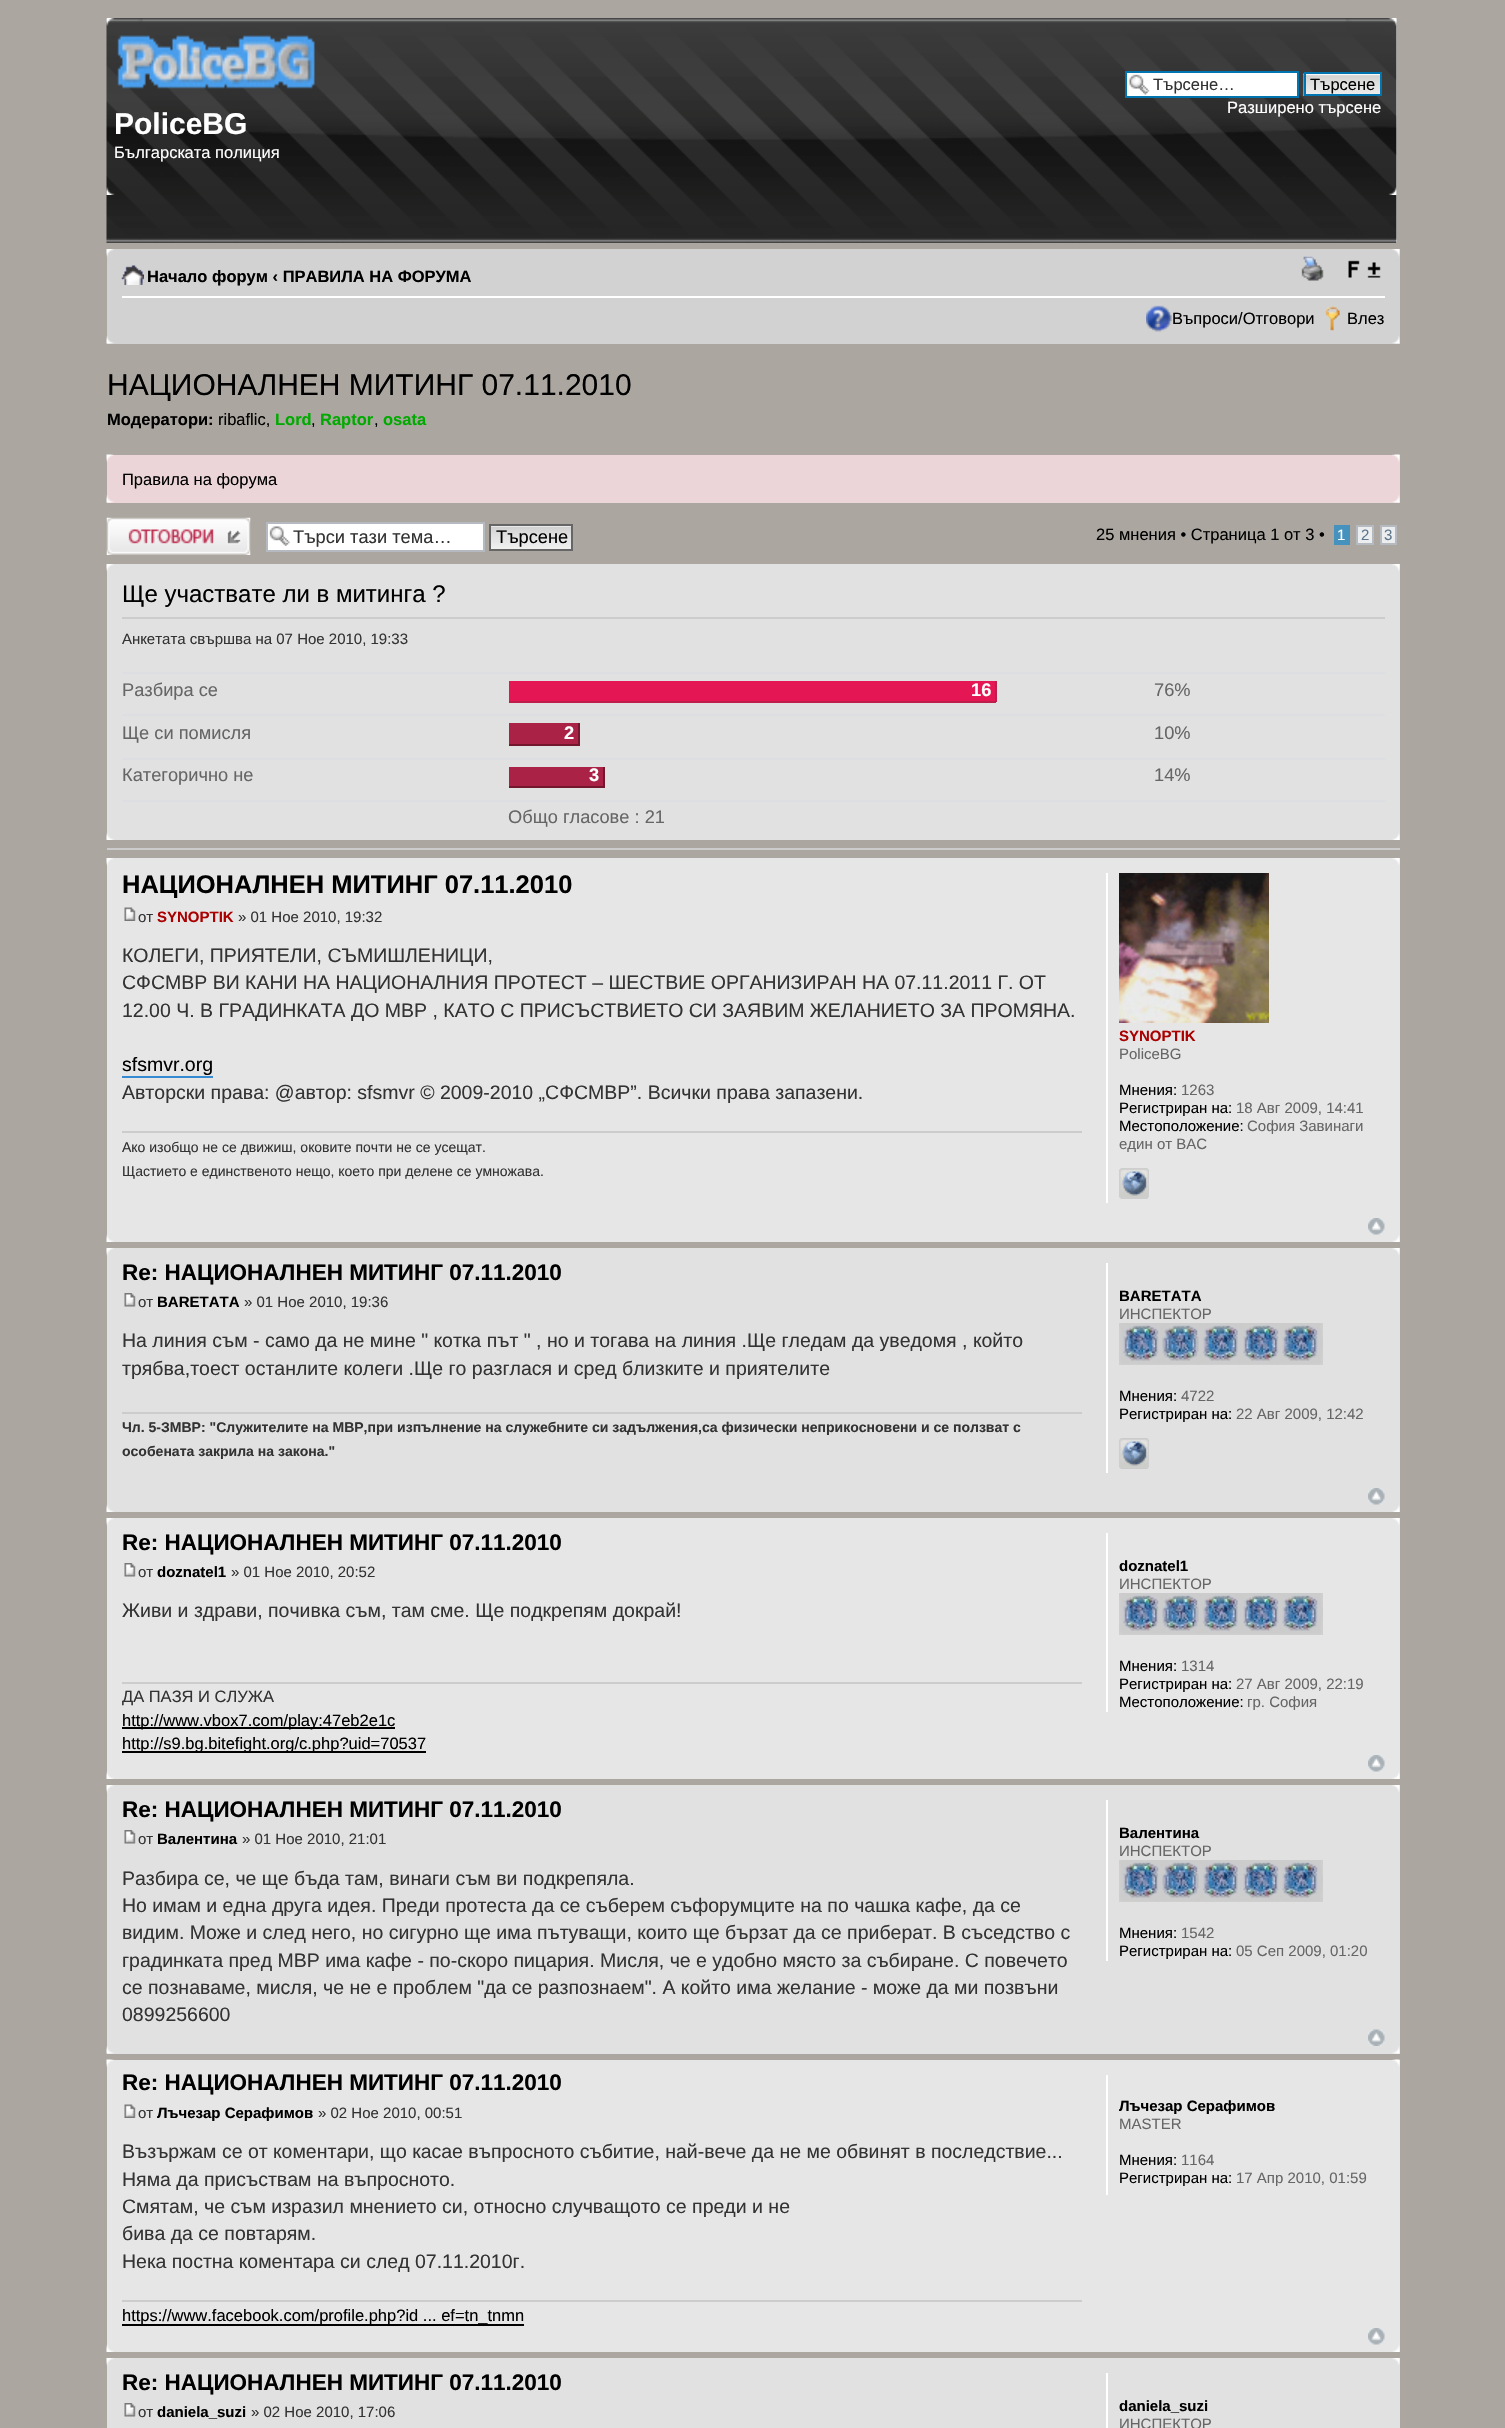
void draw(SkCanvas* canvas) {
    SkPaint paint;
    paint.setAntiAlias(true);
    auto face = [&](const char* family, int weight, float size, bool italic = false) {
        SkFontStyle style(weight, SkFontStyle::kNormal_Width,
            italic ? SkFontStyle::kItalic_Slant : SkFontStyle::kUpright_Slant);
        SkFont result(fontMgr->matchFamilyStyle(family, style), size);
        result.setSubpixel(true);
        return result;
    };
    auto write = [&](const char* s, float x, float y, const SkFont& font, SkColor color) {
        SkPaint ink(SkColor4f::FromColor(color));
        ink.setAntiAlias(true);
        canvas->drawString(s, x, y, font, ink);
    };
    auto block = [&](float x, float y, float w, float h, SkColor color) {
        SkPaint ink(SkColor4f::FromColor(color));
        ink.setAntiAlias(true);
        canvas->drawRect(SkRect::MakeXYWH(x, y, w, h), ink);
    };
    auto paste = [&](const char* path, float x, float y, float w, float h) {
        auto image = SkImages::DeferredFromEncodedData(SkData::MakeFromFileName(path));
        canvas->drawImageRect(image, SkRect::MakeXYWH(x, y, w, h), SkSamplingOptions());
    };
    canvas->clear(SkColorSetRGB(171, 167, 160));
    block(1396, 18, 1, 225, SK_ColorWHITE);
    paste("pic1.png", 106, 18, 1291, 225);
    paste("pic2.png", 106, 18, 9, 8);
    paste("pic3.png", 1388, 18, 9, 8);
    block(1127, 73, 170, 23, SK_ColorWHITE);
    paste("pic4.png", 1129, 74, 21, 21);
    paint.setStyle(SkPaint::kStroke_Style);
    paint.setStrokeWidth(2);
    paint.setColor(SkColorSetRGB(0, 117, 176));
    canvas->drawRect(SkRect::MakeXYWH(1126, 72, 172, 25), paint);
    auto kFont1 = face("Liberation Sans", 400, 16.5f);
    write("Търсене…", 1153, 90, kFont1, SkColorSetRGB(51, 51, 51));
    paste("pic5.png", 1303, 73, 77, 23);
    canvas->drawRect(SkRect::MakeXYWH(1305, 73, 76, 22), paint);
    write("Търсене", 1310, 90, kFont1, SK_ColorBLACK);
    write("Разширено търсене", 1227, 113, kFont1, SK_ColorWHITE);
    paste("pic6.png", 117, 35, 198, 54);
    auto kFont2 = face("Liberation Sans", 700, 30);
    write("PoliceBG", 114, 134, kFont2, SK_ColorWHITE);
    write("Българската полиция", 114, 158, kFont1, SK_ColorWHITE);
    paste("pic7.png", 106, 187, 9, 8);
    paste("pic8.png", 1388, 187, 9, 8);
    block(107, 249, 1293, 95, SkColorSetRGB(210, 210, 210));
    paste("pic9.png", 106, 249, 8, 8);
    paste("pic10.png", 1392, 249, 8, 8);
    block(122, 296, 1263, 2, SK_ColorWHITE);
    paste("pic11.png", 121, 265, 23, 20);
    auto kFont3 = face("Liberation Sans", 700, 16.5f);
    write("Начало форум ‹ ПРАВИЛА НА ФОРУМА", 147, 282, kFont3, SK_ColorBLACK);
    paste("pic12.png", 1301, 256, 23, 25);
    paste("pic13.png", 1348, 260, 33, 18);
    paste("pic14.png", 1146, 305, 26, 27);
    write("Въпроси/Отговори", 1172, 324, kFont1, SK_ColorBLACK);
    paste("pic15.png", 1325, 305, 15, 26);
    write("Влез", 1347, 324, kFont1, SK_ColorBLACK);
    paste("pic16.png", 106, 336, 8, 8);
    paste("pic17.png", 1392, 336, 8, 8);
    auto kFont4 = face("Liberation Sans", 400, 30);
    write("НАЦИОНАЛНЕН МИТИНГ 07.11.2010", 107, 395, kFont4, SK_ColorBLACK);
    write("Модератори:", 107, 425, kFont3, SK_ColorBLACK);
    write("ribaflic,", 218, 425, kFont1, SK_ColorBLACK);
    write("Lord", 275, 425, kFont3, SkColorSetRGB(0, 170, 0));
    write(",", 311, 425, kFont1, SK_ColorBLACK);
    write("Raptor", 320, 425, kFont3, SkColorSetRGB(0, 170, 0));
    write(",", 374, 425, kFont1, SK_ColorBLACK);
    write("osata", 383, 425, kFont3, SkColorSetRGB(0, 170, 0));
    block(107, 455, 1293, 48, SkColorSetRGB(236, 213, 216));
    paste("pic18.png", 106, 454, 8, 8);
    paste("pic19.png", 1392, 454, 8, 8);
    write("Правила на форума", 122, 485, kFont1, SK_ColorBLACK);
    paste("pic20.png", 106, 495, 8, 8);
    paste("pic21.png", 1392, 495, 8, 8);
    paste("pic22.png", 106, 517, 145, 38);
    block(268, 524, 215, 26, SK_ColorWHITE);
    paste("pic23.png", 269, 526, 21, 20);
    paint.setColor(SkColorSetRGB(180, 186, 192));
    canvas->drawRect(SkRect::MakeXYWH(267, 523, 217, 28), paint);
    auto kFont5 = face("Liberation Sans", 400, 18.25f);
    write("Търси тази тема…", 293, 543, kFont5, SkColorSetRGB(51, 51, 51));
    paste("pic24.png", 491, 526, 80, 23);
    paint.setColor(SkColorSetRGB(102, 102, 102));
    canvas->drawRect(SkRect::MakeXYWH(490, 525, 82, 25), paint);
    write("Търсене", 496, 543, kFont5, SK_ColorBLACK);
    write("25 мнения • Страница 1 от 3 •", 1096, 540, kFont1, SK_ColorBLACK);
    block(1334, 525, 16, 20, SkColorSetRGB(70, 146, 191));
    auto kFont6 = face("Liberation Sans", 400, 15);
    write("1", 1337, 540, kFont6, SK_ColorWHITE);
    paint.setStyle(SkPaint::kFill_Style);
    paint.setColor(SkColorSetRGB(236, 237, 238));
    canvas->drawRect(SkRect::MakeXYWH(1357, 526, 16, 18), paint);
    paint.setStyle(SkPaint::kStroke_Style);
    paint.setColor(SkColorSetRGB(180, 186, 192));
    canvas->drawRect(SkRect::MakeXYWH(1357, 526, 16, 18), paint);
    write("2", 1361, 540, kFont6, SkColorSetRGB(92, 117, 140));
    paint.setStyle(SkPaint::kFill_Style);
    paint.setColor(SkColorSetRGB(236, 237, 238));
    canvas->drawRect(SkRect::MakeXYWH(1381, 526, 15, 18), paint);
    paint.setStyle(SkPaint::kStroke_Style);
    paint.setColor(SkColorSetRGB(180, 186, 192));
    canvas->drawRect(SkRect::MakeXYWH(1381, 526, 15, 18), paint);
    write("3", 1384, 540, kFont6, SkColorSetRGB(92, 117, 140));
    block(107, 564, 1293, 276, SkColorSetRGB(225, 225, 225));
    paste("pic25.png", 106, 564, 8, 8);
    paste("pic26.png", 1392, 564, 8, 7);
    block(122, 617, 1263, 2, SkColorSetRGB(204, 204, 204));
    auto kFont7 = face("Liberation Sans", 400, 24);
    write("Ще участвате ли в митинга ?", 122, 602, kFont7, SK_ColorBLACK);
    write("Анкетата свършва на 07 Ное 2010, 19:33", 122, 644, kFont6, SkColorSetRGB(51, 51, 51));
    block(122, 672, 1263, 2, SkColorSetRGB(220, 222, 226));
    write("Разбира се", 122, 696, kFont5, SkColorSetRGB(102, 102, 102));
    block(509, 681, 486, 20, SkColorSetRGB(228, 22, 83));
    block(995, 681, 2, 21, SkColorSetRGB(190, 30, 74));
    block(509, 701, 487, 2, SkColorSetRGB(190, 30, 74));
    auto kFont8 = face("Liberation Sans", 700, 18.25f);
    write("16", 971, 696, kFont8, SK_ColorWHITE);
    write("76%", 1154, 696, kFont5, SkColorSetRGB(102, 102, 102));
    block(122, 714, 1263, 2, SkColorSetRGB(220, 222, 226));
    write("Ще си помисля", 122, 739, kFont5, SkColorSetRGB(102, 102, 102));
    block(509, 723, 69, 21, SkColorSetRGB(170, 35, 70));
    block(578, 723, 2, 23, SkColorSetRGB(116, 22, 44));
    block(509, 744, 70, 2, SkColorSetRGB(116, 22, 44));
    write("2", 564, 739, kFont8, SK_ColorWHITE);
    write("10%", 1154, 739, kFont5, SkColorSetRGB(102, 102, 102));
    block(122, 758, 1263, 2, SkColorSetRGB(220, 222, 226));
    write("Категорично не", 122, 781, kFont5, SkColorSetRGB(102, 102, 102));
    block(509, 767, 94, 19, SkColorSetRGB(170, 35, 70));
    block(603, 767, 2, 21, SkColorSetRGB(116, 22, 44));
    block(509, 786, 96, 2, SkColorSetRGB(116, 22, 44));
    write("3", 589, 781, kFont8, SK_ColorWHITE);
    write("14%", 1154, 781, kFont5, SkColorSetRGB(102, 102, 102));
    block(122, 800, 1263, 2, SkColorSetRGB(220, 222, 226));
    write("Общо гласове : 21", 508, 823, kFont5, SkColorSetRGB(102, 102, 102));
    paste("pic27.png", 106, 832, 8, 8);
    paste("pic28.png", 1392, 833, 8, 7);
    block(107, 848, 1293, 2, SkColorSetRGB(204, 204, 204));
    block(107, 858, 1293, 384, SkColorSetRGB(230, 230, 230));
    paste("pic29.png", 106, 858, 8, 8);
    paste("pic30.png", 1392, 858, 8, 7);
    auto kFont9 = face("Liberation Sans", 700, 25.5f);
    write("НАЦИОНАЛНЕН МИТИНГ 07.11.2010", 122, 893, kFont9, SK_ColorBLACK);
    paste("pic31.png", 124, 907, 12, 14);
    write("от", 138, 922, kFont6, SkColorSetRGB(51, 51, 51));
    auto kFont10 = face("Liberation Sans", 700, 15);
    write("SYNOPTIK", 157, 922, kFont10, SkColorSetRGB(170, 0, 0));
    write("» 01 Ное 2010, 19:32", 238, 922, kFont6, SkColorSetRGB(51, 51, 51));
    auto kFont11 = face("Liberation Sans", 400, 19.5f);
    write("КОЛЕГИ, ПРИЯТЕЛИ, СЪМИШЛЕНИЦИ,", 122, 962, kFont11, SkColorSetRGB(51, 51, 51));
    write("СФСМВР ВИ КАНИ НА НАЦИОНАЛНИЯ ПРОТЕСТ – ШЕСТВИЕ ОРГАНИЗИРАН НА 07.11.2011 Г. ОТ", 122, 989, kFont11, SkColorSetRGB(51, 51, 51));
    write("12.00 Ч. В ГРАДИНКАТА ДО МВР , КАТО С ПРИСЪСТВИЕТО СИ ЗАЯВИМ ЖЕЛАНИЕТО ЗА ПРОМЯНА.", 122, 1017, kFont11, SkColorSetRGB(51, 51, 51));
    write("sfsmvr.org", 122, 1071, kFont11, SK_ColorBLACK);
    block(122, 1076, 91, 2, SkColorSetRGB(54, 138, 210));
    write("Авторски права: @автор: sfsmvr © 2009-2010 „СФСМВР”. Всички права запазени.", 122, 1099, kFont11, SkColorSetRGB(51, 51, 51));
    block(122, 1131, 960, 2, SkColorSetRGB(204, 204, 204));
    auto kFont12 = face("Liberation Sans", 400, 14.02f);
    write("Ако изобщо не се движиш, оковите почти не се усещат.", 122, 1152, kFont12, SkColorSetRGB(51, 51, 51));
    write("Щастието е единственото нещо, което при делене се умножава.", 122, 1176, kFont12, SkColorSetRGB(51, 51, 51));
    block(1106, 873, 2, 330, SK_ColorWHITE);
    paste("pic32.png", 1119, 873, 150, 150);
    write("SYNOPTIK", 1119, 1041, kFont10, SkColorSetRGB(170, 0, 0));
    write("PoliceBG", 1119, 1059, kFont6, SkColorSetRGB(102, 102, 102));
    write("Мнения:", 1119, 1095, kFont6, SK_ColorBLACK);
    write("1263", 1181, 1095, kFont6, SkColorSetRGB(102, 102, 102));
    write("Регистриран на:", 1119, 1113, kFont6, SK_ColorBLACK);
    write("18 Авг 2009, 14:41", 1236, 1113, kFont6, SkColorSetRGB(102, 102, 102));
    write("Местоположение:", 1119, 1131, kFont6, SK_ColorBLACK);
    write("София Завинаги", 1247, 1131, kFont6, SkColorSetRGB(102, 102, 102));
    write("един от ВАС", 1119, 1149, kFont6, SkColorSetRGB(102, 102, 102));
    paste("pic33.png", 1119, 1168, 30, 31);
    paste("pic34.png", 1119, 1169, 30, 29);
    paste("pic35.png", 1368, 1218, 17, 17);
    paste("pic36.png", 106, 1234, 8, 8);
    paste("pic37.png", 1392, 1235, 8, 7);
    block(107, 1248, 1293, 264, SkColorSetRGB(225, 225, 225));
    paste("pic25.png", 106, 1248, 8, 8);
    paste("pic26.png", 1392, 1248, 8, 7);
    auto kFont13 = face("Liberation Sans", 700, 22.5f);
    write("Re: НАЦИОНАЛНЕН МИТИНГ 07.11.2010", 122, 1280, kFont13, SK_ColorBLACK);
    paste("pic38.png", 124, 1293, 12, 14);
    write("от", 138, 1307, kFont6, SkColorSetRGB(51, 51, 51));
    write("BARETATA", 157, 1307, kFont10, SK_ColorBLACK);
    write("» 01 Ное 2010, 19:36", 244, 1307, kFont6, SkColorSetRGB(51, 51, 51));
    write("На линия съм - само да не мине \" котка път \" , но и тогава на линия .Ще гледам да уведомя , който", 122, 1347, kFont11, SkColorSetRGB(51, 51, 51));
    write("трябва,тоест останлите колеги .Ще го разглася и сред близките и приятелите", 122, 1375, kFont11, SkColorSetRGB(51, 51, 51));
    block(122, 1412, 960, 2, SkColorSetRGB(204, 204, 204));
    auto kFont14 = face("Liberation Sans", 700, 14.02f);
    write("Чл. 5-ЗМВР: \"Служителите на МВР,при изпълнение на служебните си задължения,са физически неприкосновени и се ползват с", 122, 1432, kFont14, SkColorSetRGB(51, 51, 51));
    write("особената закрила на закона.\"", 122, 1456, kFont14, SkColorSetRGB(51, 51, 51));
    block(1106, 1263, 2, 210, SK_ColorWHITE);
    write("BARETATA", 1119, 1301, kFont10, SK_ColorBLACK);
    write("ИНСПЕКТОР", 1119, 1319, kFont6, SkColorSetRGB(102, 102, 102));
    paste("pic39.png", 1119, 1323, 204, 42);
    write("Мнения:", 1119, 1401, kFont6, SK_ColorBLACK);
    write("4722", 1181, 1401, kFont6, SkColorSetRGB(102, 102, 102));
    write("Регистриран на:", 1119, 1419, kFont6, SK_ColorBLACK);
    write("22 Авг 2009, 12:42", 1236, 1419, kFont6, SkColorSetRGB(102, 102, 102));
    paste("pic40.png", 1119, 1438, 30, 31);
    paste("pic41.png", 1119, 1439, 30, 29);
    paste("pic42.png", 1368, 1488, 17, 17);
    paste("pic27.png", 106, 1504, 8, 8);
    paste("pic28.png", 1392, 1505, 8, 7);
    block(107, 1518, 1293, 261, SkColorSetRGB(230, 230, 230));
    paste("pic29.png", 106, 1518, 8, 8);
    paste("pic30.png", 1392, 1518, 8, 7);
    write("Re: НАЦИОНАЛНЕН МИТИНГ 07.11.2010", 122, 1550, kFont13, SK_ColorBLACK);
    paste("pic43.png", 124, 1563, 12, 14);
    write("от", 138, 1577, kFont6, SkColorSetRGB(51, 51, 51));
    write("doznatel1", 157, 1577, kFont10, SK_ColorBLACK);
    write("» 01 Ное 2010, 20:52", 231, 1577, kFont6, SkColorSetRGB(51, 51, 51));
    write("Живи и здрави, почивка съм, там сме. Ще подкрепям докрай!", 122, 1617, kFont11, SkColorSetRGB(51, 51, 51));
    block(122, 1682, 960, 2, SkColorSetRGB(204, 204, 204));
    canvas->save();
    canvas->clipRect(SkRect::MakeXYWH(122, 1683, 960, 72));
    write("ДА ПАЗЯ И СЛУЖА", 122, 1702, kFont1, SkColorSetRGB(51, 51, 51));
    canvas->restore();
    block(122, 1727, 273, 2, SK_ColorBLACK);
    write("http://www.vbox7.com/play:47eb2e1c", 122, 1726, kFont1, SK_ColorBLACK);
    block(122, 1751, 304, 2, SK_ColorBLACK);
    write("http://s9.bg.bitefight.org/c.php?uid=70537", 122, 1749, kFont1, SK_ColorBLACK);
    block(1106, 1533, 2, 179, SK_ColorWHITE);
    write("doznatel1", 1119, 1571, kFont10, SK_ColorBLACK);
    write("ИНСПЕКТОР", 1119, 1589, kFont6, SkColorSetRGB(102, 102, 102));
    paste("pic39.png", 1119, 1593, 204, 42);
    write("Мнения:", 1119, 1671, kFont6, SK_ColorBLACK);
    write("1314", 1181, 1671, kFont6, SkColorSetRGB(102, 102, 102));
    write("Регистриран на:", 1119, 1689, kFont6, SK_ColorBLACK);
    write("27 Авг 2009, 22:19", 1236, 1689, kFont6, SkColorSetRGB(102, 102, 102));
    write("Местоположение:", 1119, 1707, kFont6, SK_ColorBLACK);
    write("гр. София", 1247, 1707, kFont6, SkColorSetRGB(102, 102, 102));
    paste("pic35.png", 1368, 1755, 17, 17);
    paste("pic36.png", 106, 1771, 8, 8);
    paste("pic37.png", 1392, 1772, 8, 7);
    block(107, 1785, 1293, 269, SkColorSetRGB(225, 225, 225));
    paste("pic25.png", 106, 1785, 8, 8);
    paste("pic26.png", 1392, 1785, 8, 7);
    write("Re: НАЦИОНАЛНЕН МИТИНГ 07.11.2010", 122, 1817, kFont13, SK_ColorBLACK);
    paste("pic38.png", 124, 1830, 12, 14);
    write("от", 138, 1844, kFont6, SkColorSetRGB(51, 51, 51));
    write("Валентина", 157, 1844, kFont10, SK_ColorBLACK);
    write("» 01 Ное 2010, 21:01", 242, 1844, kFont6, SkColorSetRGB(51, 51, 51));
    write("Разбира се, че ще бъда там, винаги съм ви подкрепяла.", 122, 1885, kFont11, SkColorSetRGB(51, 51, 51));
    write("Но имам и една друга идея. Преди протеста да се съберем съфорумците на по чашка кафе, да се", 122, 1912, kFont11, SkColorSetRGB(51, 51, 51));
    write("видим. Може и след него, но сигурно ще има пътуващи, които ще бързат да се приберат. В съседство с", 122, 1939, kFont11, SkColorSetRGB(51, 51, 51));
    write("градинката пред МВР има кафе - по-скоро пицария. Мисля, че е удобно място за събиране. С повечето", 122, 1967, kFont11, SkColorSetRGB(51, 51, 51));
    write("се познаваме, мисля, че не е проблем \"да се разпознаем\". А който има желание - може да ми позвъни", 122, 1994, kFont11, SkColorSetRGB(51, 51, 51));
    write("0899256600", 122, 2021, kFont11, SkColorSetRGB(51, 51, 51));
    block(1106, 1800, 2, 161, SK_ColorWHITE);
    write("Валентина", 1119, 1838, kFont10, SK_ColorBLACK);
    write("ИНСПЕКТОР", 1119, 1856, kFont6, SkColorSetRGB(102, 102, 102));
    paste("pic39.png", 1119, 1860, 204, 42);
    write("Мнения:", 1119, 1938, kFont6, SK_ColorBLACK);
    write("1542", 1181, 1938, kFont6, SkColorSetRGB(102, 102, 102));
    write("Регистриран на:", 1119, 1956, kFont6, SK_ColorBLACK);
    write("05 Сеп 2009, 01:20", 1236, 1956, kFont6, SkColorSetRGB(102, 102, 102));
    paste("pic44.png", 1368, 2029, 17, 17);
    paste("pic45.png", 106, 2046, 8, 8);
    paste("pic46.png", 1392, 2046, 8, 8);
    block(107, 2060, 1293, 292, SkColorSetRGB(230, 230, 230));
    paste("pic47.png", 106, 2059, 8, 8);
    paste("pic48.png", 1392, 2059, 8, 8);
    write("Re: НАЦИОНАЛНЕН МИТИНГ 07.11.2010", 122, 2090, kFont13, SK_ColorBLACK);
    paste("pic31.png", 124, 2104, 12, 14);
    write("от", 138, 2118, kFont6, SkColorSetRGB(51, 51, 51));
    write("Лъчезар Серафимов", 157, 2118, kFont10, SK_ColorBLACK);
    write("» 02 Ное 2010, 00:51", 318, 2118, kFont6, SkColorSetRGB(51, 51, 51));
    write("Възържам се от коментари, що касае въпросното събитие, най-вече да не ме обвинят в последствие...", 122, 2158, kFont11, SkColorSetRGB(51, 51, 51));
    write("Няма да присъствам на въпросното.", 122, 2186, kFont11, SkColorSetRGB(51, 51, 51));
    write("Смятам, че съм изразил мнението си, относно случващото се преди и не", 122, 2213, kFont11, SkColorSetRGB(51, 51, 51));
    write("бива да се повтарям.", 122, 2240, kFont11, SkColorSetRGB(51, 51, 51));
    write("Нека постна коментара си след 07.11.2010г.", 122, 2268, kFont11, SkColorSetRGB(51, 51, 51));
    block(122, 2300, 960, 2, SkColorSetRGB(204, 204, 204));
    block(122, 2324, 402, 2, SK_ColorBLACK);
    write("https://www.facebook.com/profile.php?id ... ef=tn_tnmn", 122, 2321, kFont1, SK_ColorBLACK);
    block(1106, 2075, 2, 120, SK_ColorWHITE);
    write("Лъчезар Серафимов", 1119, 2111, kFont10, SK_ColorBLACK);
    write("MASTER", 1119, 2129, kFont6, SkColorSetRGB(102, 102, 102));
    write("Мнения:", 1119, 2165, kFont6, SK_ColorBLACK);
    write("1164", 1181, 2165, kFont6, SkColorSetRGB(102, 102, 102));
    write("Регистриран на:", 1119, 2183, kFont6, SK_ColorBLACK);
    write("17 Апр 2010, 01:59", 1236, 2183, kFont6, SkColorSetRGB(102, 102, 102));
    paste("pic35.png", 1368, 2328, 17, 17);
    paste("pic36.png", 106, 2344, 8, 8);
    paste("pic37.png", 1392, 2345, 8, 7);
    block(107, 2358, 1293, 70, SkColorSetRGB(225, 225, 225));
    paste("pic25.png", 106, 2358, 8, 8);
    paste("pic26.png", 1392, 2358, 8, 7);
    write("Re: НАЦИОНАЛНЕН МИТИНГ 07.11.2010", 122, 2390, kFont13, SK_ColorBLACK);
    paste("pic38.png", 124, 2403, 12, 14);
    write("от", 138, 2417, kFont6, SkColorSetRGB(51, 51, 51));
    write("daniela_suzi", 157, 2417, kFont10, SK_ColorBLACK);
    write("» 02 Ное 2010, 17:06", 251, 2417, kFont6, SkColorSetRGB(51, 51, 51));
    block(1106, 2373, 2, 55, SK_ColorWHITE);
    write("daniela_suzi", 1119, 2411, kFont10, SK_ColorBLACK);
    write("ИНСПЕКТОР", 1119, 2429, kFont6, SkColorSetRGB(102, 102, 102));
}
